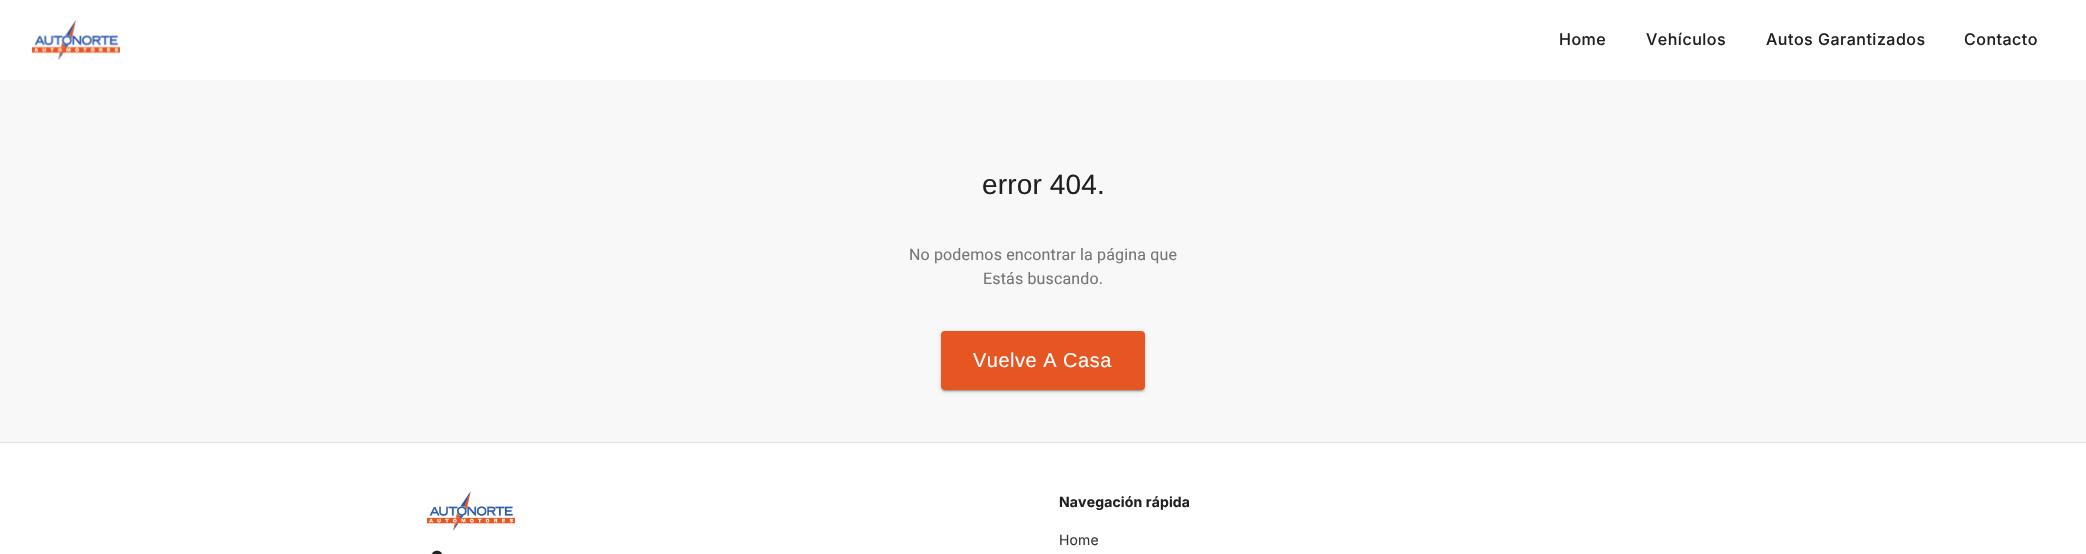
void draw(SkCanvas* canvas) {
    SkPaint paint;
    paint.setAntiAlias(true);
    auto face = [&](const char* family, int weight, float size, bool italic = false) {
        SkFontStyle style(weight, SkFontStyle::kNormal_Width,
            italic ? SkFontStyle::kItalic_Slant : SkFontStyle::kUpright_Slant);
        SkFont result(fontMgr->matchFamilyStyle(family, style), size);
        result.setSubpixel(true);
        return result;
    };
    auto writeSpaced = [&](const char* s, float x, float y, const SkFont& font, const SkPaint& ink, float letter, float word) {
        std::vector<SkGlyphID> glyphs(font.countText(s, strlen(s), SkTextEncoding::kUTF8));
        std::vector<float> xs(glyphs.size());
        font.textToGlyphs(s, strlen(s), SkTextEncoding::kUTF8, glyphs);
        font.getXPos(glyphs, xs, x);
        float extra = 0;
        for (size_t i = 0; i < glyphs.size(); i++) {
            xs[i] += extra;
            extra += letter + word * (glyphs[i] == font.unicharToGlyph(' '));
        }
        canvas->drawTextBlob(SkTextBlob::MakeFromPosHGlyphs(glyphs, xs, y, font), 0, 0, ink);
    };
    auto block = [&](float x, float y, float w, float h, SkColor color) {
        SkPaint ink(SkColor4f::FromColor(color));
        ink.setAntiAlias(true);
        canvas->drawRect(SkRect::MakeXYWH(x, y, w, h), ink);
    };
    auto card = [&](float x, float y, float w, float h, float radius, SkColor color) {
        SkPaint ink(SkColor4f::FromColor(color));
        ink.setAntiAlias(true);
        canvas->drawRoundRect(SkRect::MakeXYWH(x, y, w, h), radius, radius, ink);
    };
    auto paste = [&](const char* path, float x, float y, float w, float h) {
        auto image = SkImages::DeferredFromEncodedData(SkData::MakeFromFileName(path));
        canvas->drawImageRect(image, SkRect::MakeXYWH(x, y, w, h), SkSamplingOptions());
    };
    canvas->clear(SkColorSetRGB(248, 248, 248));
    block(0, 0, 2086, 80, SK_ColorWHITE);
    paste("pic1.png", 32, 20, 88, 40);
    auto kFont1 = face("Inter", 500, 16);
    paint.setColor(SkColorSetRGB(32, 32, 32));
    writeSpaced("Home", 1559, 45, kFont1, paint, 0.5f, 0);
    writeSpaced("Vehículos", 1646, 45, kFont1, paint, 0.5f, 0);
    writeSpaced("Autos Garantizados", 1766, 45, kFont1, paint, 0.5f, 0);
    writeSpaced("Contacto", 1964, 45, kFont1, paint, 0.5f, 0);
    auto kFont2 = face("Liberation Sans", 400, 28);
    writeSpaced("error 404.", 982, 194, kFont2, paint, 0.15f, 0);
    auto kFont3 = face("Roboto", 400, 16);
    paint.setColor(SkColorSetRGB(117, 117, 117));
    writeSpaced("No podemos encontrar la página que", 909, 260, kFont3, paint, 0.15f, 0);
    writeSpaced("Estás buscando.", 983, 284, kFont3, paint, 0.15f, 0);
    paint.setColor(SkColorSetARGB(31, 0, 0, 0));
    paint.setMaskFilter(SkMaskFilter::MakeBlur(kNormal_SkBlurStyle, 2.5f));
    canvas->drawRoundRect(SkRect::MakeXYWH(941, 332, 204, 59), 4, 4, paint);
    paint.setMaskFilter(nullptr);
    paint.setColor(SkColorSetARGB(36, 0, 0, 0));
    paint.setMaskFilter(SkMaskFilter::MakeBlur(kNormal_SkBlurStyle, 1));
    canvas->drawRoundRect(SkRect::MakeXYWH(941, 333, 204, 59), 4, 4, paint);
    paint.setMaskFilter(nullptr);
    paint.setColor(SkColorSetARGB(51, 0, 0, 0));
    paint.setMaskFilter(SkMaskFilter::MakeBlur(kNormal_SkBlurStyle, 0.5f));
    canvas->drawRoundRect(SkRect::MakeXYWH(943, 336, 200, 55), 2, 2, paint);
    paint.setMaskFilter(nullptr);
    card(941, 331, 204, 59, 4, SkColorSetRGB(230, 86, 34));
    auto kFont4 = face("Liberation Sans", 400, 20);
    paint.setColor(SK_ColorWHITE);
    writeSpaced("Vuelve A Casa", 973, 367, kFont4, paint, 0.5f, 0);
    block(0, 443, 2086, 111, SK_ColorWHITE);
    block(0, 442, 2086, 1, SkColorSetRGB(224, 224, 224));
    paste("pic2.png", 427, 491, 88, 40);
    paste("pic3.png", 431, 550, 12, 4);
    auto kFont5 = face("Inter", 700, 14);
    paint.setColor(SkColorSetRGB(32, 32, 32));
    writeSpaced("Navegación rápida", 1059, 507, kFont5, paint, 0.15f, 0);
    auto kFont6 = face("Inter", 400, 14);
    paint.setColor(SkColorSetRGB(56, 56, 56));
    writeSpaced("Home", 1059, 545, kFont6, paint, 0.15f, 0);
}
